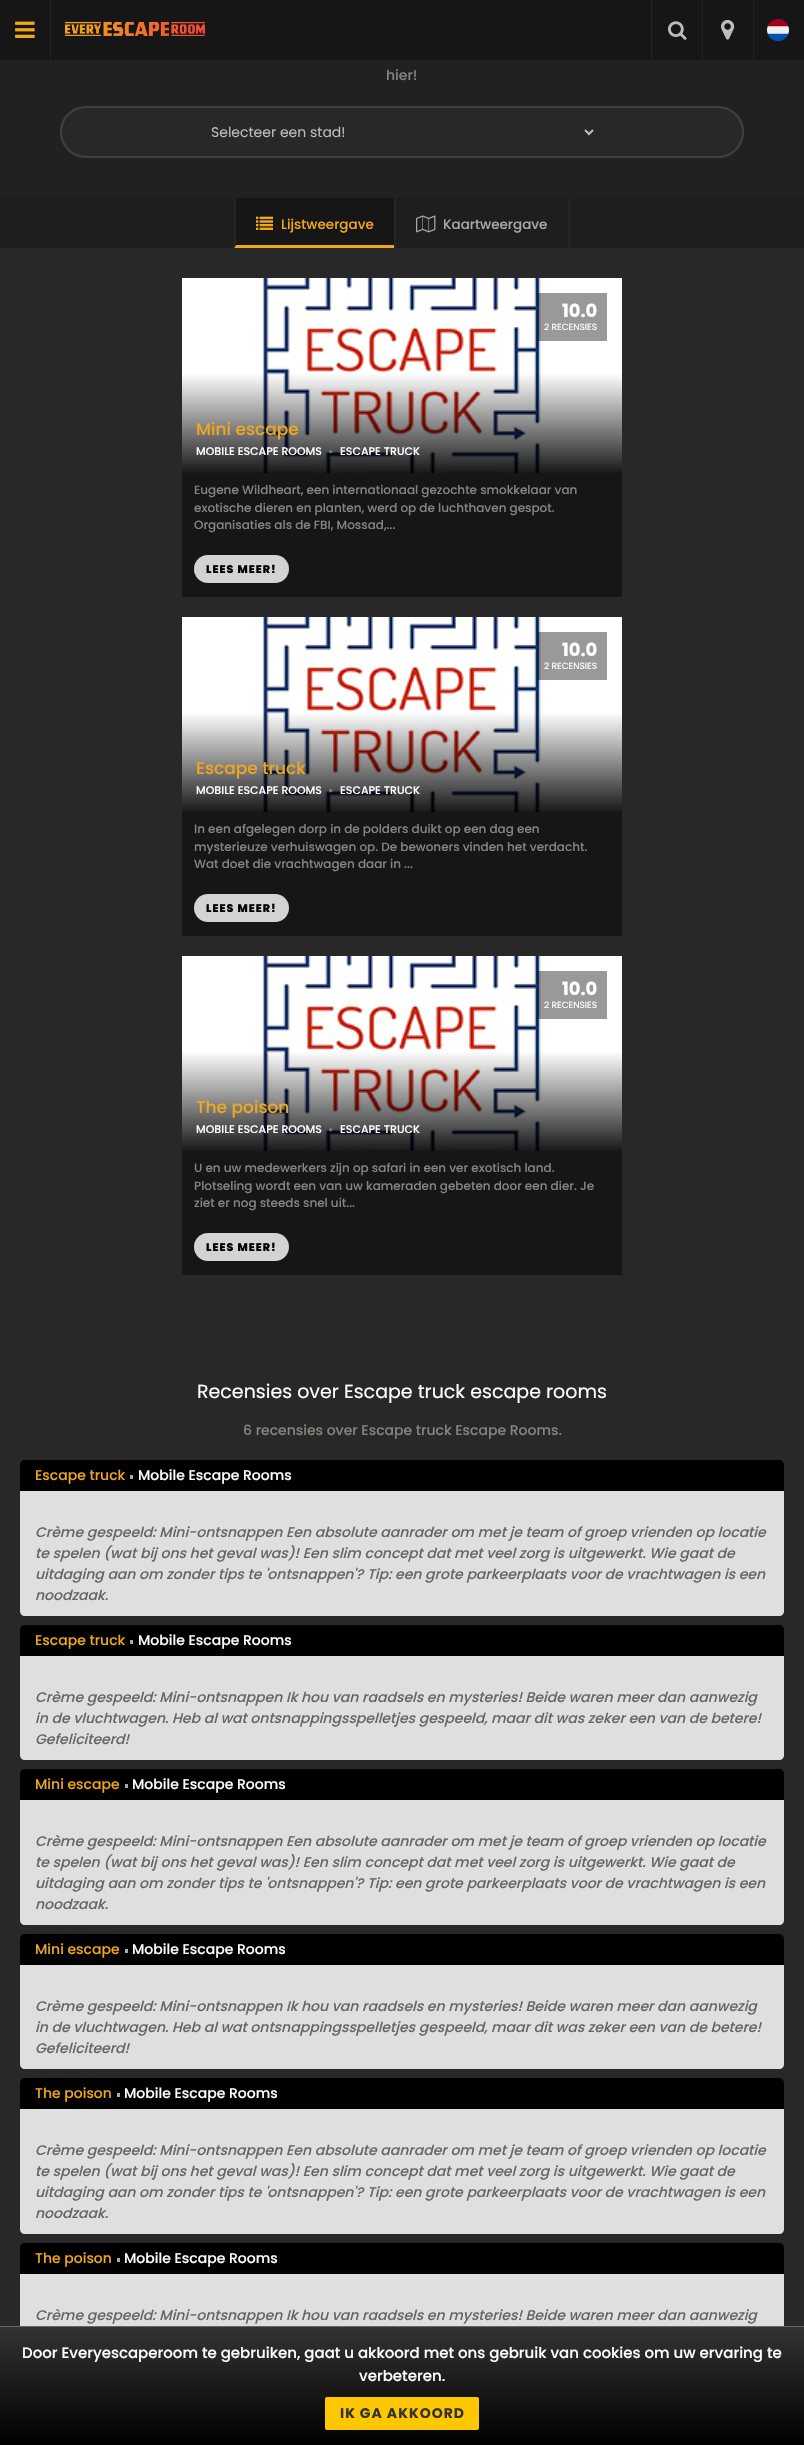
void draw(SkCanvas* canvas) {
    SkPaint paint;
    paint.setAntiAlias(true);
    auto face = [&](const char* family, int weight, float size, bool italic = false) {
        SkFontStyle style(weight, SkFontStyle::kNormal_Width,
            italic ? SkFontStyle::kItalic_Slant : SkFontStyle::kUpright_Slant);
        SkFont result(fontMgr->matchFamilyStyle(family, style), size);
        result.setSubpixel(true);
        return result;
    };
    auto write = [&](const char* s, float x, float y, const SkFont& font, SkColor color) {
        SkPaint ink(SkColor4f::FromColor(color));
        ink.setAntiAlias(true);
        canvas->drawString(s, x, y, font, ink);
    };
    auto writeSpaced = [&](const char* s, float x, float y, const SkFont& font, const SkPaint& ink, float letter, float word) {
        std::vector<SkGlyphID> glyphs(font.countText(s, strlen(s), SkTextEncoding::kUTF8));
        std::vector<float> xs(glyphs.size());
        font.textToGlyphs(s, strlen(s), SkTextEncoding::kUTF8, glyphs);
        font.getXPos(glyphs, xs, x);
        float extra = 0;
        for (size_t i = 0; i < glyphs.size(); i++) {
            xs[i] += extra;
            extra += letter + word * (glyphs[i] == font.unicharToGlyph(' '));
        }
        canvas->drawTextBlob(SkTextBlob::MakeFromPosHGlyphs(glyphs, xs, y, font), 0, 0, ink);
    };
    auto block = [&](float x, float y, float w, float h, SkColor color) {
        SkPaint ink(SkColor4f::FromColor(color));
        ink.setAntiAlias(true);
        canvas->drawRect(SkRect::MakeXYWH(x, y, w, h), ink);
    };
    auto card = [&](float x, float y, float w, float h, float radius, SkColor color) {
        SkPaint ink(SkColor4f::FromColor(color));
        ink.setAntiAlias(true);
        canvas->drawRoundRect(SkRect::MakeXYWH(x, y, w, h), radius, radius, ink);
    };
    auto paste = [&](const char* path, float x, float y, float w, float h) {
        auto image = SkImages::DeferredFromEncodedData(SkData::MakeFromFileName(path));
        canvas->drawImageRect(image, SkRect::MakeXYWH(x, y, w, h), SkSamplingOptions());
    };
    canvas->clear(SkColorSetRGB(40, 40, 40));
    block(0, 0, 804, 60, SkColorSetRGB(22, 22, 22));
    block(50, 0, 1, 60, SkColorSetRGB(34, 34, 34));
    paste("pic1.png", 15, 21, 20, 17);
    paste("pic2.png", 65, 21, 140, 15);
    block(651, 0, 1, 60, SkColorSetRGB(34, 34, 34));
    paste("pic3.png", 668, 21, 19, 19);
    block(702, 0, 1, 60, SkColorSetRGB(34, 34, 34));
    paste("pic4.png", 721, 19, 14, 21);
    block(753, 0, 1, 60, SkColorSetRGB(34, 34, 34));
    paste("pic5.png", 767, 19, 22, 22);
    block(0, 60, 804, 138, SkColorSetRGB(33, 33, 33));
    auto kFont1 = face("Poppins", 500, 14);
    write("hier!", 386, 80, kFont1, SkColorSetRGB(134, 132, 126));
    paint.setColor(SkColorSetRGB(40, 40, 39));
    canvas->drawRoundRect(SkRect::MakeXYWH(61, 107, 682, 50), 25, 25, paint);
    paint.setStyle(SkPaint::kStroke_Style);
    paint.setStrokeWidth(2);
    paint.setColor(SkColorSetRGB(64, 64, 63));
    canvas->drawRoundRect(SkRect::MakeXYWH(61, 107, 682, 50), 25, 25, paint);
    paint.setColor(SkColorSetRGB(190, 189, 185));
    canvas->drawPath(SkPathBuilder().moveTo(585, 130).lineTo(589, 134).lineTo(593, 130).detach(), paint);
    auto kFont2 = face("Poppins", 400, 14);
    write("Selecteer een stad!", 211, 137, kFont2, SkColorSetRGB(190, 189, 185));
    block(0, 198, 804, 50, SkColorSetRGB(30, 30, 30));
    block(234, 198, 160, 50, SkColorSetRGB(22, 22, 22));
    paint.setStyle(SkPaint::kFill_Style);
    paint.setColor(SkColorSetRGB(241, 167, 27));
    canvas->drawPath(SkPathBuilder().moveTo(394, 248).lineTo(234, 248).lineTo(236, 245).lineTo(394, 245).close().detach(), paint);
    paint.setColor(SkColorSetRGB(37, 37, 37));
    canvas->drawPath(SkPathBuilder().moveTo(234, 248).lineTo(234, 198).lineTo(236, 198).lineTo(236, 245).close().detach(), paint);
    paste("pic6.png", 256, 216, 17, 14);
    auto kFont3 = face("Poppins", 500, 13.5f);
    write("Lijstweergave", 281, 229, kFont3, SkColorSetRGB(241, 167, 27));
    block(568, 198, 2, 50, SkColorSetRGB(37, 37, 37));
    block(394, 198, 2, 50, SkColorSetRGB(37, 37, 37));
    paste("pic7.png", 416, 215, 20, 18);
    write("Kaartweergave", 443, 229, kFont3, SkColorSetRGB(170, 169, 166));
    block(182, 473, 440, 124, SkColorSetRGB(22, 22, 22));
    paste("pic8.png", 182, 278, 440, 195);
    block(538, 293, 69, 48, SkColorSetARGB(102, 0, 0, 0));
    auto kFont4 = face("Poppins", 700, 18);
    write("10.0", 562, 317, kFont4, SK_ColorWHITE);
    auto kFont5 = face("Poppins", 400, 9);
    write("2 RECENSIES", 544, 330, kFont5, SK_ColorWHITE);
    auto kFont6 = face("Poppins", 500, 17);
    write("Mini escape", 196, 435, kFont6, SkColorSetRGB(241, 167, 27));
    auto kFont7 = face("Poppins", 500, 11);
    write("MOBILE ESCAPE ROOMS", 196, 455, kFont7, SK_ColorWHITE);
    paste("pic9.png", 329, 450, 4, 4);
    write("ESCAPE TRUCK", 340, 455, kFont7, SK_ColorWHITE);
    auto kFont8 = face("Poppins", 500, 12);
    write("Eugene Wildheart, een internationaal gezochte smokkelaar van", 194, 494, kFont8, SkColorSetRGB(134, 132, 126));
    write("exotische dieren en planten, werd op de luchthaven gespot.", 194, 512, kFont8, SkColorSetRGB(134, 132, 126));
    write("Organisaties als de FBI, Mossad,...", 194, 529, kFont8, SkColorSetRGB(134, 132, 126));
    card(194, 555, 95, 28, 14, SkColorSetRGB(212, 211, 210));
    auto kFont9 = face("Poppins", 800, 11);
    paint.setColor(SK_ColorBLACK);
    writeSpaced("LEES MEER!", 206, 573, kFont9, paint, 1, 0);
    block(182, 812, 440, 124, SkColorSetRGB(22, 22, 22));
    paste("pic8.png", 182, 617, 440, 195);
    block(538, 632, 69, 48, SkColorSetARGB(102, 0, 0, 0));
    write("10.0", 562, 656, kFont4, SK_ColorWHITE);
    write("2 RECENSIES", 544, 669, kFont5, SK_ColorWHITE);
    write("Escape truck", 196, 774, kFont6, SkColorSetRGB(241, 167, 27));
    write("MOBILE ESCAPE ROOMS", 196, 794, kFont7, SK_ColorWHITE);
    paste("pic9.png", 329, 789, 4, 4);
    write("ESCAPE TRUCK", 340, 794, kFont7, SK_ColorWHITE);
    write("In een afgelegen dorp in de polders duikt op een dag een", 194, 833, kFont8, SkColorSetRGB(134, 132, 126));
    write("mysterieuze verhuiswagen op. De bewoners vinden het verdacht.", 194, 851, kFont8, SkColorSetRGB(134, 132, 126));
    write("Wat doet die vrachtwagen daar in ...", 194, 868, kFont8, SkColorSetRGB(134, 132, 126));
    card(194, 894, 95, 28, 14, SkColorSetRGB(212, 211, 210));
    writeSpaced("LEES MEER!", 206, 912, kFont9, paint, 1, 0);
    block(182, 1151, 440, 124, SkColorSetRGB(22, 22, 22));
    paste("pic8.png", 182, 956, 440, 195);
    block(538, 971, 69, 48, SkColorSetARGB(102, 0, 0, 0));
    write("10.0", 562, 995, kFont4, SK_ColorWHITE);
    write("2 RECENSIES", 544, 1008, kFont5, SK_ColorWHITE);
    write("The poison", 196, 1113, kFont6, SkColorSetRGB(241, 167, 27));
    write("MOBILE ESCAPE ROOMS", 196, 1133, kFont7, SK_ColorWHITE);
    paste("pic9.png", 329, 1128, 4, 4);
    write("ESCAPE TRUCK", 340, 1133, kFont7, SK_ColorWHITE);
    write("U en uw medewerkers zijn op safari in een ver exotisch land.", 194, 1172, kFont8, SkColorSetRGB(134, 132, 126));
    write("Plotseling wordt een van uw kameraden gebeten door een dier. Je", 194, 1190, kFont8, SkColorSetRGB(134, 132, 126));
    write("ziet er nog steeds snel uit...", 194, 1207, kFont8, SkColorSetRGB(134, 132, 126));
    card(194, 1233, 95, 28, 14, SkColorSetRGB(212, 211, 210));
    writeSpaced("LEES MEER!", 206, 1251, kFont9, paint, 1, 0);
    auto kFont10 = face("Poppins", 400, 19);
    write("Recensies over Escape truck escape rooms", 197, 1398, kFont10, SK_ColorWHITE);
    write("6 recensies over Escape truck Escape Rooms.", 243, 1435, kFont1, SkColorSetRGB(134, 132, 126));
    paint.setColor(SkColorSetRGB(223, 223, 223));
    canvas->drawPath(SkPathBuilder().moveTo(26, 1461).lineTo(778, 1461).cubicTo(781.5f, 1461, 784, 1463.5f, 784, 1467).lineTo(784, 1611).cubicTo(784, 1614, 782, 1616, 779, 1616).lineTo(25, 1616).cubicTo(22, 1616, 20, 1614, 20, 1611).lineTo(20, 1467).cubicTo(20, 1463.5f, 22.5f, 1461, 26, 1461).close().detach(), paint);
    paint.setColor(SK_ColorBLACK);
    canvas->drawPath(SkPathBuilder().moveTo(25, 1460).lineTo(779, 1460).cubicTo(782, 1460, 784, 1462, 784, 1465).lineTo(784, 1491).lineTo(20, 1491).lineTo(20, 1465).cubicTo(20, 1462, 22, 1460, 25, 1460).close().detach(), paint);
    write("Escape truck", 35, 1480, kFont1, SkColorSetRGB(241, 167, 27));
    block(130, 1475, 3, 4, SkColorSetRGB(170, 170, 170));
    write("Mobile Escape Rooms", 138, 1480, kFont1, SK_ColorWHITE);
    auto kFont11 = face("Poppins", 500, 14, true);
    write("Crème gespeeld: Mini-ontsnappen Een absolute aanrader om met je team of groep vrienden op locatie", 35, 1537, kFont11, SkColorSetRGB(102, 102, 102));
    write("te spelen (wat bij ons het geval was)! Een slim concept dat met veel zorg is uitgewerkt. Wie gaat de", 35, 1558, kFont11, SkColorSetRGB(102, 102, 102));
    write("uitdaging aan om zonder tips te 'ontsnappen'? Tip: een grote parkeerplaats voor de vrachtwagen is een", 35, 1579, kFont11, SkColorSetRGB(102, 102, 102));
    write("noodzaak.", 35, 1600, kFont11, SkColorSetRGB(102, 102, 102));
    paint.setColor(SkColorSetRGB(223, 223, 223));
    canvas->drawPath(SkPathBuilder().moveTo(26, 1626).lineTo(778, 1626).cubicTo(781.5f, 1626, 784, 1628.5f, 784, 1632).lineTo(784, 1755).cubicTo(784, 1758, 782, 1760, 779, 1760).lineTo(25, 1760).cubicTo(22, 1760, 20, 1758, 20, 1755).lineTo(20, 1632).cubicTo(20, 1628.5f, 22.5f, 1626, 26, 1626).close().detach(), paint);
    paint.setColor(SK_ColorBLACK);
    canvas->drawPath(SkPathBuilder().moveTo(25, 1625).lineTo(779, 1625).cubicTo(782, 1625, 784, 1627, 784, 1630).lineTo(784, 1656).lineTo(20, 1656).lineTo(20, 1630).cubicTo(20, 1627, 22, 1625, 25, 1625).close().detach(), paint);
    write("Escape truck", 35, 1645, kFont1, SkColorSetRGB(241, 167, 27));
    block(130, 1640, 3, 4, SkColorSetRGB(170, 170, 170));
    write("Mobile Escape Rooms", 138, 1645, kFont1, SK_ColorWHITE);
    write("Crème gespeeld: Mini-ontsnappen Ik hou van raadsels en mysteries! Beide waren meer dan aanwezig", 35, 1702, kFont11, SkColorSetRGB(102, 102, 102));
    write("in de vluchtwagen. Heb al wat ontsnappingsspelletjes gespeeld, maar dit was zeker een van de betere!", 35, 1723, kFont11, SkColorSetRGB(102, 102, 102));
    write("Gefeliciteerd!", 35, 1744, kFont11, SkColorSetRGB(102, 102, 102));
    paint.setColor(SkColorSetRGB(223, 223, 223));
    canvas->drawPath(SkPathBuilder().moveTo(26, 1770).lineTo(778, 1770).cubicTo(781.5f, 1770, 784, 1772.5f, 784, 1776).lineTo(784, 1920).cubicTo(784, 1923, 782, 1925, 779, 1925).lineTo(25, 1925).cubicTo(22, 1925, 20, 1923, 20, 1920).lineTo(20, 1776).cubicTo(20, 1772.5f, 22.5f, 1770, 26, 1770).close().detach(), paint);
    paint.setColor(SK_ColorBLACK);
    canvas->drawPath(SkPathBuilder().moveTo(25, 1769).lineTo(779, 1769).cubicTo(782, 1769, 784, 1771, 784, 1774).lineTo(784, 1800).lineTo(20, 1800).lineTo(20, 1774).cubicTo(20, 1771, 22, 1769, 25, 1769).close().detach(), paint);
    write("Mini escape", 35, 1789, kFont1, SkColorSetRGB(241, 167, 27));
    block(125, 1784, 3, 4, SkColorSetRGB(170, 170, 170));
    write("Mobile Escape Rooms", 132, 1789, kFont1, SK_ColorWHITE);
    write("Crème gespeeld: Mini-ontsnappen Een absolute aanrader om met je team of groep vrienden op locatie", 35, 1846, kFont11, SkColorSetRGB(102, 102, 102));
    write("te spelen (wat bij ons het geval was)! Een slim concept dat met veel zorg is uitgewerkt. Wie gaat de", 35, 1867, kFont11, SkColorSetRGB(102, 102, 102));
    write("uitdaging aan om zonder tips te 'ontsnappen'? Tip: een grote parkeerplaats voor de vrachtwagen is een", 35, 1888, kFont11, SkColorSetRGB(102, 102, 102));
    write("noodzaak.", 35, 1909, kFont11, SkColorSetRGB(102, 102, 102));
    paint.setColor(SkColorSetRGB(223, 223, 223));
    canvas->drawPath(SkPathBuilder().moveTo(26, 1935).lineTo(778, 1935).cubicTo(781.5f, 1935, 784, 1937.5f, 784, 1941).lineTo(784, 2064).cubicTo(784, 2067, 782, 2069, 779, 2069).lineTo(25, 2069).cubicTo(22, 2069, 20, 2067, 20, 2064).lineTo(20, 1941).cubicTo(20, 1937.5f, 22.5f, 1935, 26, 1935).close().detach(), paint);
    paint.setColor(SK_ColorBLACK);
    canvas->drawPath(SkPathBuilder().moveTo(25, 1934).lineTo(779, 1934).cubicTo(782, 1934, 784, 1936, 784, 1939).lineTo(784, 1965).lineTo(20, 1965).lineTo(20, 1939).cubicTo(20, 1936, 22, 1934, 25, 1934).close().detach(), paint);
    write("Mini escape", 35, 1954, kFont1, SkColorSetRGB(241, 167, 27));
    block(125, 1949, 3, 4, SkColorSetRGB(170, 170, 170));
    write("Mobile Escape Rooms", 132, 1954, kFont1, SK_ColorWHITE);
    write("Crème gespeeld: Mini-ontsnappen Ik hou van raadsels en mysteries! Beide waren meer dan aanwezig", 35, 2011, kFont11, SkColorSetRGB(102, 102, 102));
    write("in de vluchtwagen. Heb al wat ontsnappingsspelletjes gespeeld, maar dit was zeker een van de betere!", 35, 2032, kFont11, SkColorSetRGB(102, 102, 102));
    write("Gefeliciteerd!", 35, 2053, kFont11, SkColorSetRGB(102, 102, 102));
    paint.setColor(SkColorSetRGB(223, 223, 223));
    canvas->drawPath(SkPathBuilder().moveTo(26, 2079).lineTo(778, 2079).cubicTo(781.5f, 2079, 784, 2081.5f, 784, 2085).lineTo(784, 2229).cubicTo(784, 2232, 782, 2234, 779, 2234).lineTo(25, 2234).cubicTo(22, 2234, 20, 2232, 20, 2229).lineTo(20, 2085).cubicTo(20, 2081.5f, 22.5f, 2079, 26, 2079).close().detach(), paint);
    paint.setColor(SK_ColorBLACK);
    canvas->drawPath(SkPathBuilder().moveTo(25, 2078).lineTo(779, 2078).cubicTo(782, 2078, 784, 2080, 784, 2083).lineTo(784, 2109).lineTo(20, 2109).lineTo(20, 2083).cubicTo(20, 2080, 22, 2078, 25, 2078).close().detach(), paint);
    write("The poison", 35, 2098, kFont1, SkColorSetRGB(241, 167, 27));
    block(117, 2093, 3, 4, SkColorSetRGB(170, 170, 170));
    write("Mobile Escape Rooms", 124, 2098, kFont1, SK_ColorWHITE);
    write("Crème gespeeld: Mini-ontsnappen Een absolute aanrader om met je team of groep vrienden op locatie", 35, 2155, kFont11, SkColorSetRGB(102, 102, 102));
    write("te spelen (wat bij ons het geval was)! Een slim concept dat met veel zorg is uitgewerkt. Wie gaat de", 35, 2176, kFont11, SkColorSetRGB(102, 102, 102));
    write("uitdaging aan om zonder tips te 'ontsnappen'? Tip: een grote parkeerplaats voor de vrachtwagen is een", 35, 2197, kFont11, SkColorSetRGB(102, 102, 102));
    write("noodzaak.", 35, 2218, kFont11, SkColorSetRGB(102, 102, 102));
    paint.setColor(SkColorSetRGB(223, 223, 223));
    canvas->drawPath(SkPathBuilder().moveTo(26, 2244).lineTo(778, 2244).cubicTo(781.5f, 2244, 784, 2246.5f, 784, 2250).lineTo(784, 2373).cubicTo(784, 2376, 782, 2378, 779, 2378).lineTo(25, 2378).cubicTo(22, 2378, 20, 2376, 20, 2373).lineTo(20, 2250).cubicTo(20, 2246.5f, 22.5f, 2244, 26, 2244).close().detach(), paint);
    paint.setColor(SK_ColorBLACK);
    canvas->drawPath(SkPathBuilder().moveTo(25, 2243).lineTo(779, 2243).cubicTo(782, 2243, 784, 2245, 784, 2248).lineTo(784, 2274).lineTo(20, 2274).lineTo(20, 2248).cubicTo(20, 2245, 22, 2243, 25, 2243).close().detach(), paint);
    write("The poison", 35, 2263, kFont1, SkColorSetRGB(241, 167, 27));
    block(117, 2258, 3, 4, SkColorSetRGB(170, 170, 170));
    write("Mobile Escape Rooms", 124, 2263, kFont1, SK_ColorWHITE);
    write("Crème gespeeld: Mini-ontsnappen Ik hou van raadsels en mysteries! Beide waren meer dan aanwezig", 35, 2320, kFont11, SkColorSetRGB(102, 102, 102));
    {
        const SkColor colors[] = {SkColorSetRGB(51, 51, 51), SK_ColorBLACK};
        const float stops[] = {0, 1};
        const SkPoint ends[] = {{402, 2327}, {402, 2445}};
        paint.setShader(SkGradientShader::MakeLinear(ends, colors, stops, 2, SkTileMode::kClamp));
        paint.setAlpha(255);
    }
    canvas->drawRect(SkRect::MakeXYWH(0, 2327, 804, 118), paint);
    block(0, 2326, 804, 1, SkColorSetRGB(102, 102, 102));
    auto kFont12 = face("Poppins", 500, 15);
    write("Door Everyescaperoom te gebruiken, gaat u akkoord met ons gebruik van cookies om uw ervaring te", 22, 2358, kFont12, SK_ColorWHITE);
    write("verbeteren.", 359, 2381, kFont12, SK_ColorWHITE);
    card(325, 2397, 154, 33, 2, SkColorSetRGB(254, 199, 0));
    auto kFont13 = face("Poppins", 700, 14);
    paint.setShader(nullptr);
    paint.setColor(SkColorSetRGB(51, 51, 51));
    writeSpaced("IK GA AKKOORD", 340, 2418, kFont13, paint, 1, 0);
}
